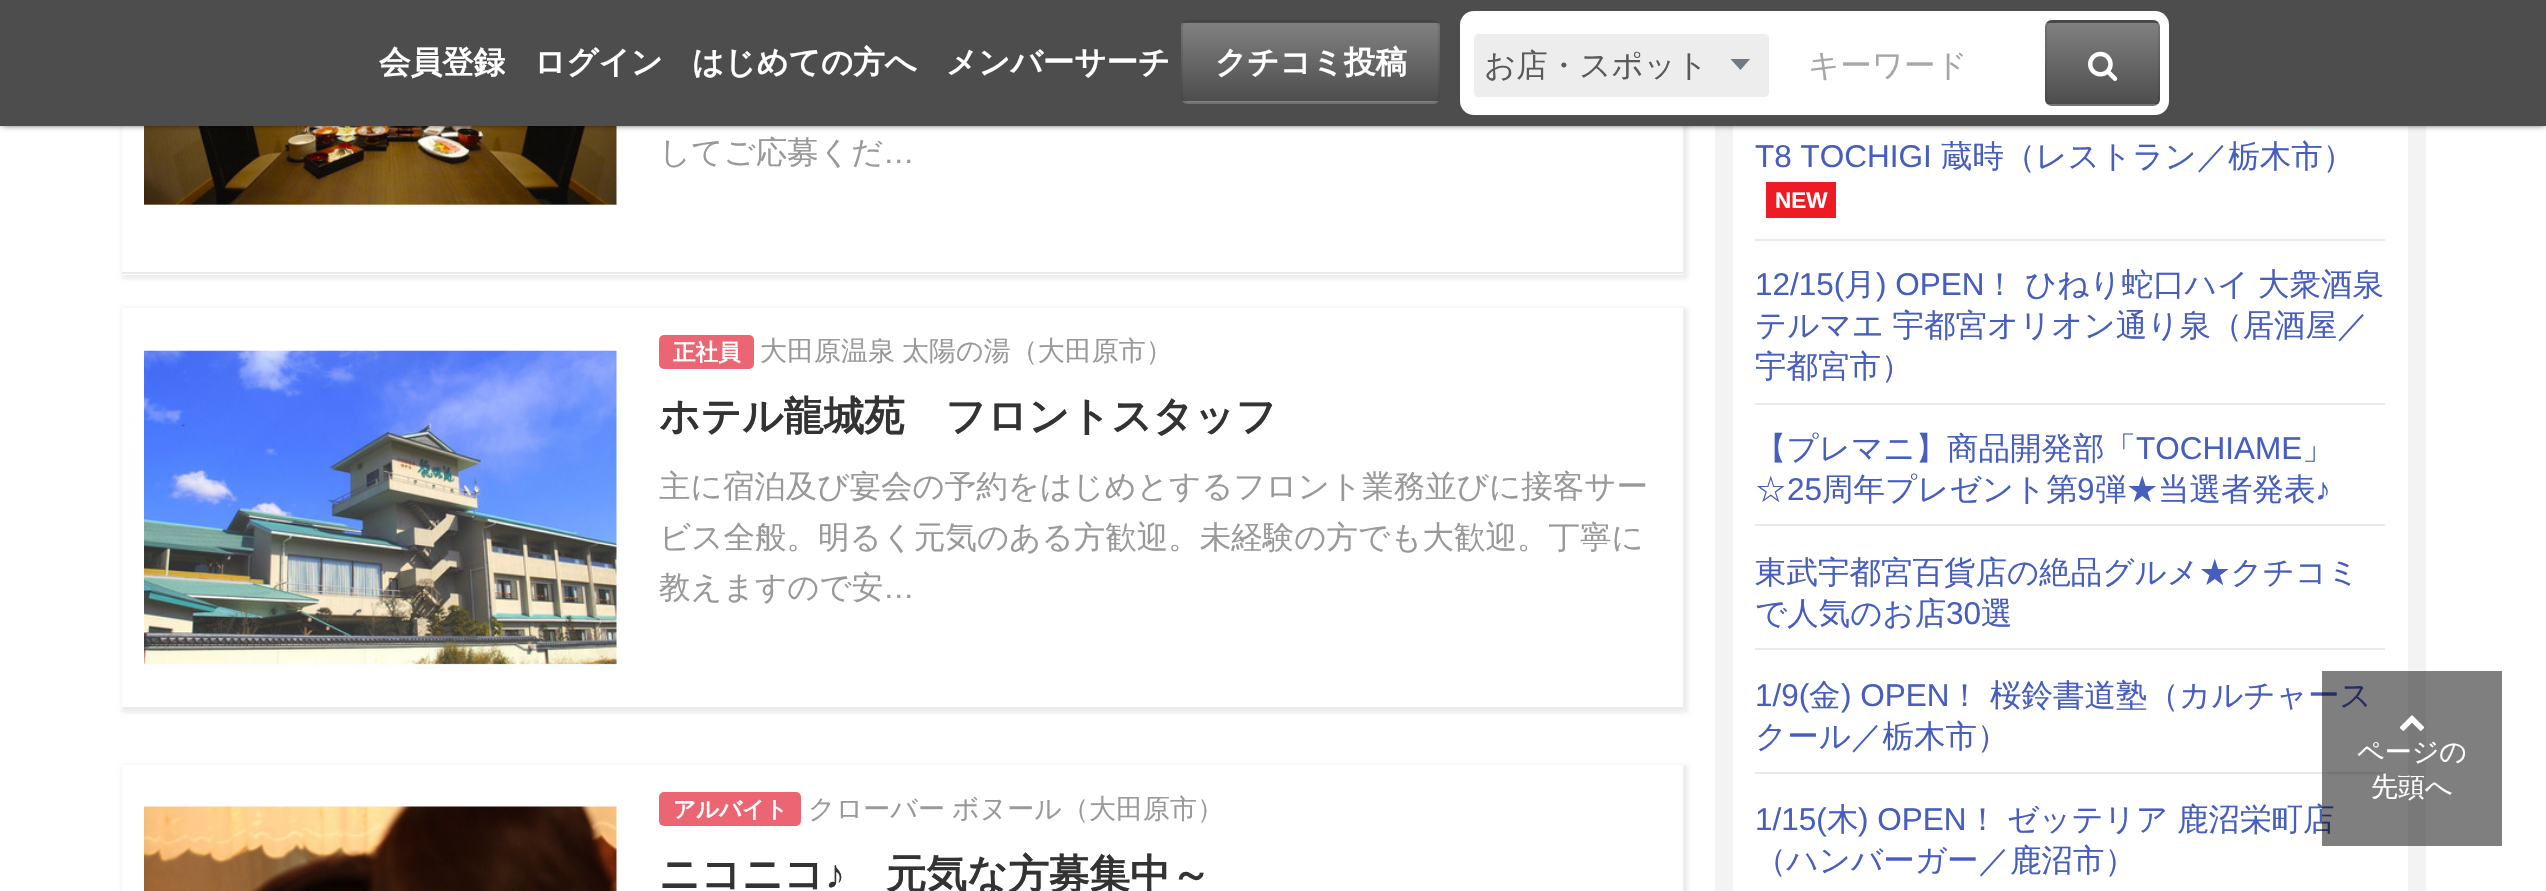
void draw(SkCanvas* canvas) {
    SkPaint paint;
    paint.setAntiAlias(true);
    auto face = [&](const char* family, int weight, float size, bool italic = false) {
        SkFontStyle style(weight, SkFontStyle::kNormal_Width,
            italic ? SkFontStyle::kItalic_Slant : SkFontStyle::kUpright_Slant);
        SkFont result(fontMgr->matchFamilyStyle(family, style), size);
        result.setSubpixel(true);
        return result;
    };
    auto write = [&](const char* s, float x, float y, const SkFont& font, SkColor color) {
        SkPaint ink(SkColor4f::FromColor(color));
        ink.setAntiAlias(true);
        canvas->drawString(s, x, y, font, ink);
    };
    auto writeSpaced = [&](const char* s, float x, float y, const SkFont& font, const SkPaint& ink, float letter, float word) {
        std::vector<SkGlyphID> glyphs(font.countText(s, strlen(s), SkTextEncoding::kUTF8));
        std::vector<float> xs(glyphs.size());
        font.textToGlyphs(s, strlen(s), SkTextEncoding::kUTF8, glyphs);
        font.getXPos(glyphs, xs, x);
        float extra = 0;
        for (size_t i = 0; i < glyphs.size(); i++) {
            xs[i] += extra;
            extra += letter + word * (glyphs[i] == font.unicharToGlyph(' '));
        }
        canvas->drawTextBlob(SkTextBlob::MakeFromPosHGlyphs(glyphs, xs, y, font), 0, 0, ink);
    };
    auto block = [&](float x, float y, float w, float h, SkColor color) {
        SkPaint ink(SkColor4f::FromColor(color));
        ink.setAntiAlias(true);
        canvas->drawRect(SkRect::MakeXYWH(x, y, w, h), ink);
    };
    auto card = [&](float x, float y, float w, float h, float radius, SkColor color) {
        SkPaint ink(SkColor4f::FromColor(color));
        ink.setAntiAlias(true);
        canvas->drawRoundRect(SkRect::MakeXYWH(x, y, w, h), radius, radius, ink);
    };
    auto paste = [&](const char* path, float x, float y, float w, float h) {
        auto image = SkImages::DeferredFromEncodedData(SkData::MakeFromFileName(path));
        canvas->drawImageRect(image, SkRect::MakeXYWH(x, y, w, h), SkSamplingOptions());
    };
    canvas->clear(SK_ColorWHITE);
    paint.setColor(SkColorSetRGB(237, 237, 237));
    paint.setMaskFilter(SkMaskFilter::MakeBlur(kNormal_SkBlurStyle, 2));
    canvas->drawRect(SkRect::MakeXYWH(122, -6, 1566, 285), paint);
    paint.setMaskFilter(nullptr);
    block(122, 126, 1561, 149, SK_ColorWHITE);
    paste("pic2.png", 144, 126, 473, 81);
    block(1715, 126, 711, 765, SkColorSetRGB(243, 243, 243));
    block(1733, 126, 675, 765, SK_ColorWHITE);
    paint.setColor(SK_ColorBLACK);
    paint.setMaskFilter(SkMaskFilter::MakeBlur(kNormal_SkBlurStyle, 3.5f));
    canvas->drawRect(SkRect::MakeXYWH(2, 2, 2543, 122), paint);
    paint.setMaskFilter(nullptr);
    block(0, 0, 2546, 126, SkColorSetRGB(77, 77, 77));
    auto kFont1 = face("WenQuanYi Zen Hei", 700, 31.5f);
    write("会員登録", 379, 73, kFont1, SK_ColorWHITE);
    write("ログイン", 534, 73, kFont1, SK_ColorWHITE);
    write("はじめての方へ", 692, 73, kFont1, SK_ColorWHITE);
    write("メンバーサーチ", 946, 73, kFont1, SK_ColorWHITE);
    canvas->save();
    canvas->clipPath(SkPathBuilder().moveTo(1188, 20).lineTo(1433, 20).cubicTo(1437, 20, 1440, 23, 1440, 27).lineTo(1440, 97).cubicTo(1440, 101, 1437, 104, 1433, 104).lineTo(1188, 104).cubicTo(1184, 104, 1181, 101, 1181, 97).lineTo(1181, 27).cubicTo(1181, 23, 1184, 20, 1188, 20).close().detach(), true);
    {
        const SkColor colors[] = {SkColorSetRGB(129, 129, 129), SkColorSetRGB(77, 77, 77)};
        const float stops[] = {0, 1};
        const SkPoint ends[] = {{1311, 22}, {1311, 101}};
        paint.setShader(SkGradientShader::MakeLinear(ends, colors, stops, 2, SkTileMode::kClamp));
        paint.setAlpha(255);
    }
    canvas->drawRect(SkRect::MakeXYWH(1181, 23, 259, 78), paint);
    {
        const SkColor colors[] = {SkColorSetRGB(129, 129, 129), SkColorSetRGB(77, 77, 77)};
        const float stops[] = {0, 1};
        const SkPoint ends[] = {{1311, 101}, {1311, 180}};
        paint.setShader(SkGradientShader::MakeLinear(ends, colors, stops, 2, SkTileMode::kClamp));
        paint.setAlpha(255);
    }
    canvas->drawRect(SkRect::MakeXYWH(1181, 101, 259, 3), paint);
    canvas->restore();
    paint.setStyle(SkPaint::kStroke_Style);
    paint.setStrokeWidth(2);
    paint.setShader(nullptr);
    paint.setColor(SkColorSetARGB(26, 0, 0, 0));
    canvas->drawRoundRect(SkRect::MakeXYWH(1182, 21, 257, 82), 6, 6, paint);
    write("クチコミ投稿", 1215, 73, kFont1, SK_ColorWHITE);
    card(1460, 11, 709, 104, 14, SK_ColorWHITE);
    card(1474, 34, 295, 63, 5, SkColorSetRGB(237, 237, 237));
    canvas->save();
    canvas->clipRect(SkRect::MakeXYWH(1730, 59, 21, 11));
    paint.setStyle(SkPaint::kFill_Style);
    paint.setColor(SkColorSetRGB(113, 122, 131));
    canvas->drawPath(SkPathBuilder().moveTo(1750.5f, 58.5f).lineTo(1740.5f, 70).lineTo(1730, 58.5f).close().detach(), paint);
    canvas->restore();
    paint.setStyle(SkPaint::kStroke_Style);
    paint.setColor(SkColorSetRGB(237, 237, 237));
    canvas->drawRoundRect(SkRect::MakeXYWH(1475, 35, 293, 61), 4, 4, paint);
    auto kFont2 = face("WenQuanYi Zen Hei", 500, 31.5f);
    write("お店・スポット", 1484, 76, kFont2, SkColorSetRGB(90, 90, 90));
    write("キーワード", 1808, 76, kFont2, SkColorSetRGB(167, 167, 167));
    canvas->save();
    canvas->clipPath(SkPathBuilder().moveTo(2052, 20).lineTo(2153, 20).cubicTo(2157, 20, 2160, 23, 2160, 27).lineTo(2160, 99).cubicTo(2160, 103, 2157, 106, 2153, 106).lineTo(2052, 106).cubicTo(2048, 106, 2045, 103, 2045, 99).lineTo(2045, 27).cubicTo(2045, 23, 2048, 20, 2052, 20).close().detach(), true);
    paint.setStyle(SkPaint::kFill_Style);
    {
        const SkColor colors[] = {SkColorSetRGB(129, 129, 129), SkColorSetRGB(77, 77, 77)};
        const float stops[] = {0, 1};
        const SkPoint ends[] = {{2103, -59}, {2103, 23}};
        paint.setShader(SkGradientShader::MakeLinear(ends, colors, stops, 2, SkTileMode::kClamp));
        paint.setAlpha(255);
    }
    canvas->drawRect(SkRect::MakeXYWH(2045, 20, 115, 3), paint);
    {
        const SkColor colors[] = {SkColorSetRGB(129, 129, 129), SkColorSetRGB(77, 77, 77)};
        const float stops[] = {0, 1};
        const SkPoint ends[] = {{2103, 22}, {2103, 104}};
        paint.setShader(SkGradientShader::MakeLinear(ends, colors, stops, 2, SkTileMode::kClamp));
        paint.setAlpha(255);
    }
    canvas->drawRect(SkRect::MakeXYWH(2045, 23, 115, 81), paint);
    {
        const SkColor colors[] = {SkColorSetRGB(129, 129, 129), SkColorSetRGB(77, 77, 77)};
        const float stops[] = {0, 1};
        const SkPoint ends[] = {{2103, 104}, {2103, 185}};
        paint.setShader(SkGradientShader::MakeLinear(ends, colors, stops, 2, SkTileMode::kClamp));
        paint.setAlpha(255);
    }
    canvas->drawRect(SkRect::MakeXYWH(2045, 104, 115, 2), paint);
    canvas->restore();
    paint.setStyle(SkPaint::kStroke_Style);
    paint.setShader(nullptr);
    paint.setColor(SkColorSetARGB(26, 0, 0, 0));
    canvas->drawRoundRect(SkRect::MakeXYWH(2046, 21, 113, 84), 6, 6, paint);
    paste("pic1.png", 2088, 51, 30, 30);
    block(122, 272, 1561, 2, SkColorSetRGB(234, 234, 234));
    write("してご応募くだ", 659, 163, kFont2, SkColorSetRGB(153, 153, 153));
    auto kFont3 = face("Liberation Sans", 400, 31.5f);
    write("…", 883, 163, kFont3, SkColorSetRGB(153, 153, 153));
    paint.setStyle(SkPaint::kFill_Style);
    paint.setColor(SkColorSetRGB(237, 237, 237));
    paint.setMaskFilter(SkMaskFilter::MakeBlur(kNormal_SkBlurStyle, 2));
    canvas->drawRect(SkRect::MakeXYWH(122, 308, 1566, 405), paint);
    paint.setMaskFilter(nullptr);
    block(122, 308, 1561, 399, SK_ColorWHITE);
    block(122, 707, 1561, 2, SkColorSetRGB(234, 234, 234));
    paste("pic3.png", 144, 350, 473, 320);
    card(659, 335, 95, 34, 5, SkColorSetRGB(235, 102, 114));
    auto kFont4 = face("WenQuanYi Zen Hei", 700, 22.5f);
    write("正社員", 673, 360, kFont4, SK_ColorWHITE);
    auto kFont5 = face("WenQuanYi Zen Hei", 500, 27);
    paint.setColor(SkColorSetRGB(153, 153, 153));
    writeSpaced("大田原温泉 太陽の湯（大田原市）", 760, 360, kFont5, paint, 0, -1);
    auto kFont6 = face("WenQuanYi Zen Hei", 700, 40.5f);
    write("ホテル龍城苑　フロントスタッフ", 659, 430, kFont6, SkColorSetRGB(51, 51, 51));
    write("主に宿泊及び宴会の予約をはじめとするフロント業務並びに接客サー", 659, 497, kFont2, SkColorSetRGB(153, 153, 153));
    write("ビス全般。明るく元気のある方歓迎。未経験の方でも大歓迎。丁寧に", 659, 548, kFont2, SkColorSetRGB(153, 153, 153));
    write("教えますので安", 659, 598, kFont2, SkColorSetRGB(153, 153, 153));
    write("…", 883, 598, kFont3, SkColorSetRGB(153, 153, 153));
    canvas->save();
    canvas->clipPath(SkPathBuilder(SkPathFillType::kEvenOdd).moveTo(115, 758).lineTo(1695, 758).lineTo(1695, 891).lineTo(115, 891).close().moveTo(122, 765).lineTo(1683, 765).lineTo(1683, 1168).lineTo(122, 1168).close().detach(), true);
    paint.setColor(SkColorSetRGB(237, 237, 237));
    paint.setMaskFilter(SkMaskFilter::MakeBlur(kNormal_SkBlurStyle, 2));
    canvas->drawRect(SkRect::MakeXYWH(122, 765, 1566, 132), paint);
    paint.setMaskFilter(nullptr);
    canvas->restore();
    paste("pic4.png", 144, 806, 473, 85);
    card(659, 792, 142, 34, 5, SkColorSetRGB(235, 102, 114));
    write("アルバイト", 673, 817, kFont4, SK_ColorWHITE);
    paint.setColor(SkColorSetRGB(153, 153, 153));
    writeSpaced("クローバー ボヌール（大田原市）", 808, 818, kFont5, paint, 0, -1);
    write("ニコニコ", 659, 888, kFont6, SkColorSetRGB(51, 51, 51));
    auto kFont7 = face("Liberation Sans", 700, 40.5f);
    write("♪", 825, 888, kFont7, SkColorSetRGB(51, 51, 51));
    write("元気な方募集中～", 886, 888, kFont6, SkColorSetRGB(51, 51, 51));
    block(1755, 239, 630, 2, SkColorSetRGB(234, 234, 234));
    write("T8 TOCHIGI", 1755, 167, kFont3, SkColorSetRGB(71, 94, 190));
    write("蔵時（レストラン／栃木市）", 1941, 167, kFont2, SkColorSetRGB(71, 94, 190));
    block(1766, 182, 70, 36, SkColorSetRGB(237, 28, 36));
    auto kFont8 = face("Liberation Sans", 700, 22.5f);
    write("NEW", 1775, 208, kFont8, SK_ColorWHITE);
    block(1755, 403, 630, 2, SkColorSetRGB(234, 234, 234));
    write("12/15(", 1755, 295, kFont3, SkColorSetRGB(71, 94, 190));
    write("月", 1844, 295, kFont2, SkColorSetRGB(71, 94, 190));
    write(") OPEN", 1876, 295, kFont3, SkColorSetRGB(71, 94, 190));
    write("！", 1984, 295, kFont2, SkColorSetRGB(71, 94, 190));
    write("ひねり蛇口ハイ", 2025, 295, kFont2, SkColorSetRGB(71, 94, 190));
    write("大衆酒泉", 2258, 295, kFont2, SkColorSetRGB(71, 94, 190));
    paint.setColor(SkColorSetRGB(71, 94, 190));
    writeSpaced("テルマエ 宇都宮オリオン通り泉（居酒屋／", 1755, 336, kFont2, paint, 0, -1);
    write("宇都宮市）", 1755, 377, kFont2, SkColorSetRGB(71, 94, 190));
    block(1755, 524, 630, 2, SkColorSetRGB(234, 234, 234));
    write("【プレマニ】商品開発部「", 1755, 459, kFont2, SkColorSetRGB(71, 94, 190));
    write("TOCHIAME", 2136, 459, kFont3, SkColorSetRGB(71, 94, 190));
    write("」", 2302, 459, kFont2, SkColorSetRGB(71, 94, 190));
    write("☆", 1755, 500, kFont2, SkColorSetRGB(71, 94, 190));
    write("25", 1787, 500, kFont3, SkColorSetRGB(71, 94, 190));
    write("周年プレゼント第", 1822, 500, kFont2, SkColorSetRGB(71, 94, 190));
    write("9", 2077, 500, kFont3, SkColorSetRGB(71, 94, 190));
    write("弾★当選者発表", 2095, 500, kFont2, SkColorSetRGB(71, 94, 190));
    write("♪", 2315, 500, kFont3, SkColorSetRGB(71, 94, 190));
    block(1755, 648, 630, 2, SkColorSetRGB(234, 234, 234));
    write("東武宇都宮百貨店の絶品グルメ★クチコミ", 1755, 583, kFont2, SkColorSetRGB(71, 94, 190));
    write("で人気のお店", 1755, 624, kFont2, SkColorSetRGB(71, 94, 190));
    write("30", 1946, 624, kFont3, SkColorSetRGB(71, 94, 190));
    write("選", 1981, 624, kFont2, SkColorSetRGB(71, 94, 190));
    block(1755, 772, 630, 2, SkColorSetRGB(234, 234, 234));
    write("1/9(", 1755, 706, kFont3, SkColorSetRGB(71, 94, 190));
    write("金", 1809, 706, kFont2, SkColorSetRGB(71, 94, 190));
    write(") OPEN", 1841, 706, kFont3, SkColorSetRGB(71, 94, 190));
    write("！", 1949, 706, kFont2, SkColorSetRGB(71, 94, 190));
    write("桜鈴書道塾（カルチャース", 1990, 706, kFont2, SkColorSetRGB(71, 94, 190));
    write("クール／栃木市）", 1755, 747, kFont2, SkColorSetRGB(71, 94, 190));
    write("1/15(", 1755, 830, kFont3, SkColorSetRGB(71, 94, 190));
    write("木", 1827, 830, kFont2, SkColorSetRGB(71, 94, 190));
    write(") OPEN", 1858, 830, kFont3, SkColorSetRGB(71, 94, 190));
    write("！", 1967, 830, kFont2, SkColorSetRGB(71, 94, 190));
    write("ゼッテリア", 2007, 830, kFont2, SkColorSetRGB(71, 94, 190));
    write("鹿沼栄町店", 2177, 830, kFont2, SkColorSetRGB(71, 94, 190));
    write("（ハンバーガー／鹿沼市）", 1755, 871, kFont2, SkColorSetRGB(71, 94, 190));
    block(2322, 671, 180, 175, SkColorSetARGB(128, 0, 0, 0));
    paste("pic5.png", 2399, 715, 26, 16);
    write("ページの", 2357, 761, kFont5, SK_ColorWHITE);
    write("先頭へ", 2371, 796, kFont5, SK_ColorWHITE);
}
